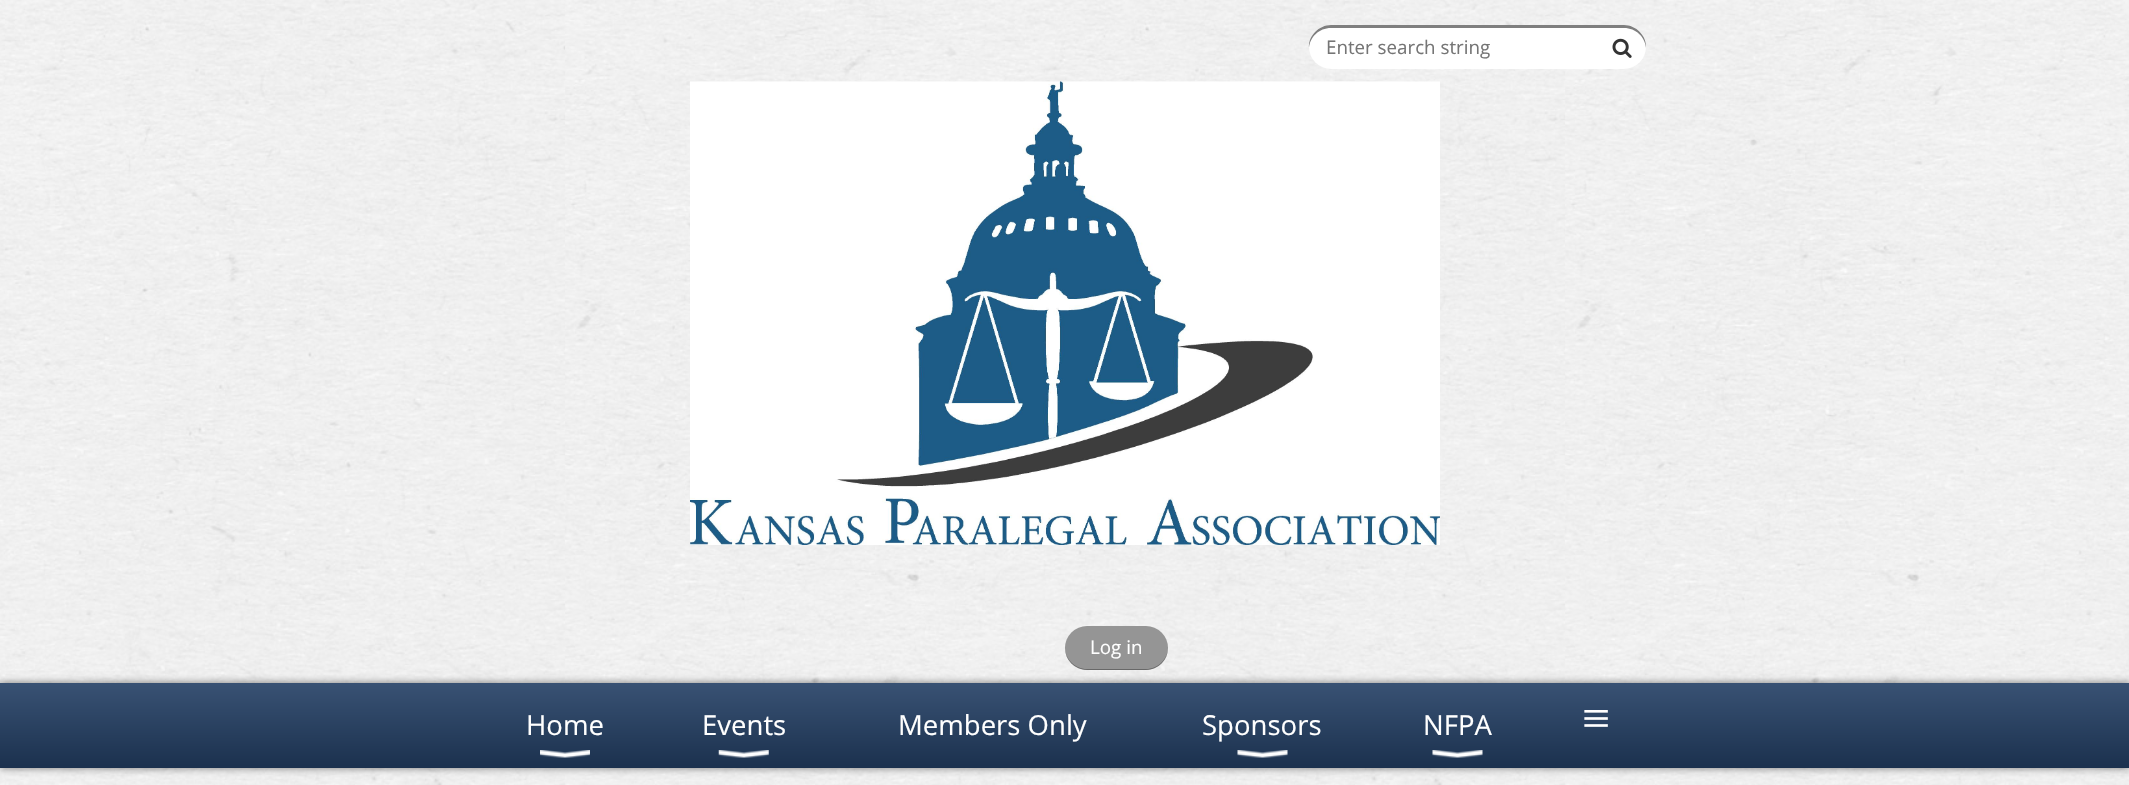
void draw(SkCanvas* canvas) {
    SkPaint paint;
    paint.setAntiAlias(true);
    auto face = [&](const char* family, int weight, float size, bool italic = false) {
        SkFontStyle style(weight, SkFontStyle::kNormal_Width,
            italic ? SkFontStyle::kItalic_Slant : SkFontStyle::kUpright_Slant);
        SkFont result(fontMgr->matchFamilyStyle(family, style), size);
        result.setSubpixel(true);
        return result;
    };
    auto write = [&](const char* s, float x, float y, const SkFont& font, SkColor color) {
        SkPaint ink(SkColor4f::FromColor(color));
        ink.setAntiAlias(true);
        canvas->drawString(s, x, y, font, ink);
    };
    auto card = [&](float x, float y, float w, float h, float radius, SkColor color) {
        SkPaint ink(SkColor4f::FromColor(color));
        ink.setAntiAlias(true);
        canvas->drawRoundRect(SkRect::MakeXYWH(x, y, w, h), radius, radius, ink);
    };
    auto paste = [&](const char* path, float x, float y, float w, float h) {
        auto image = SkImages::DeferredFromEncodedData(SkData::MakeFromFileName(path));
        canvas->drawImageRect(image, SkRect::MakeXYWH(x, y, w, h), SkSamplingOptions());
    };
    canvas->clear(SK_ColorWHITE);
    paste("pic1.png", 0, 0, 2129, 785);
    card(1309, 25, 337, 44, 22, SK_ColorWHITE);
    paint.setColor(SkColorSetARGB(128, 0, 0, 0));
    canvas->drawPath(SkPathBuilder().moveTo(1331, 28).lineTo(1624, 28).cubicTo(1636, 28, 1645, 37, 1646, 48).cubicTo(1647, 36, 1636, 25, 1624, 25).lineTo(1331, 25).cubicTo(1319, 25, 1308, 36, 1309, 48).cubicTo(1310, 37, 1319, 28, 1331, 28).close().detach(), paint);
    auto kFont1 = face("Open Sans", 400, 18.75f);
    write("Enter search string", 1326, 54, kFont1, SkColorSetRGB(117, 117, 117));
    paste("pic2.png", 1612, 38, 20, 20);
    paste("pic3.png", 690, 81, 750, 464);
    card(1065, 626, 103, 44, 22, SkColorSetRGB(149, 149, 149));
    paint.setColor(SkColorSetARGB(77, 0, 0, 0));
    canvas->drawPath(SkPathBuilder().moveTo(1065, 647).lineTo(1065, 648).cubicTo(1065, 660, 1075, 670, 1087, 670).lineTo(1146, 670).cubicTo(1158, 670, 1168, 660, 1168, 648).lineTo(1168, 647).cubicTo(1168, 659, 1158, 669, 1146, 669).lineTo(1087, 669).cubicTo(1075, 669, 1065, 659, 1065, 647).close().detach(), paint);
    write("Log in", 1090, 654, kFont1, SK_ColorWHITE);
    paint.setColor(SkColorSetARGB(128, 0, 0, 0));
    paint.setMaskFilter(SkMaskFilter::MakeBlur(kNormal_SkBlurStyle, 4));
    canvas->drawRect(SkRect::MakeXYWH(0, 683, 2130, 85), paint);
    paint.setMaskFilter(nullptr);
    {
        const SkColor colors[] = {SkColorSetRGB(57, 82, 116), SkColorSetRGB(27, 49, 78)};
        const float stops[] = {0, 1};
        const SkPoint ends[] = {{1065, 682}, {1065, 768}};
        paint.setShader(SkGradientShader::MakeLinear(ends, colors, stops, 2, SkTileMode::kClamp));
        paint.setAlpha(255);
    }
    canvas->drawRect(SkRect::MakeXYWH(0, 683, 2129, 85), paint);
    auto kFont2 = face("Open Sans", 400, 27.5f);
    write("Home", 526, 735, kFont2, SK_ColorWHITE);
    paste("pic4.png", 540, 750, 50, 8);
    write("Events", 702, 735, kFont2, SK_ColorWHITE);
    paste("pic5.png", 718, 750, 51, 8);
    write("Members Only", 898, 735, kFont2, SK_ColorWHITE);
    write("Sponsors", 1202, 735, kFont2, SK_ColorWHITE);
    paste("pic6.png", 1237, 750, 51, 8);
    write("NFPA", 1423, 735, kFont2, SK_ColorWHITE);
    paste("pic7.png", 1432, 750, 51, 8);
    auto kFont3 = face("Liberation Serif", 400, 50);
    write("≡", 1582, 735, kFont3, SK_ColorWHITE);
}
